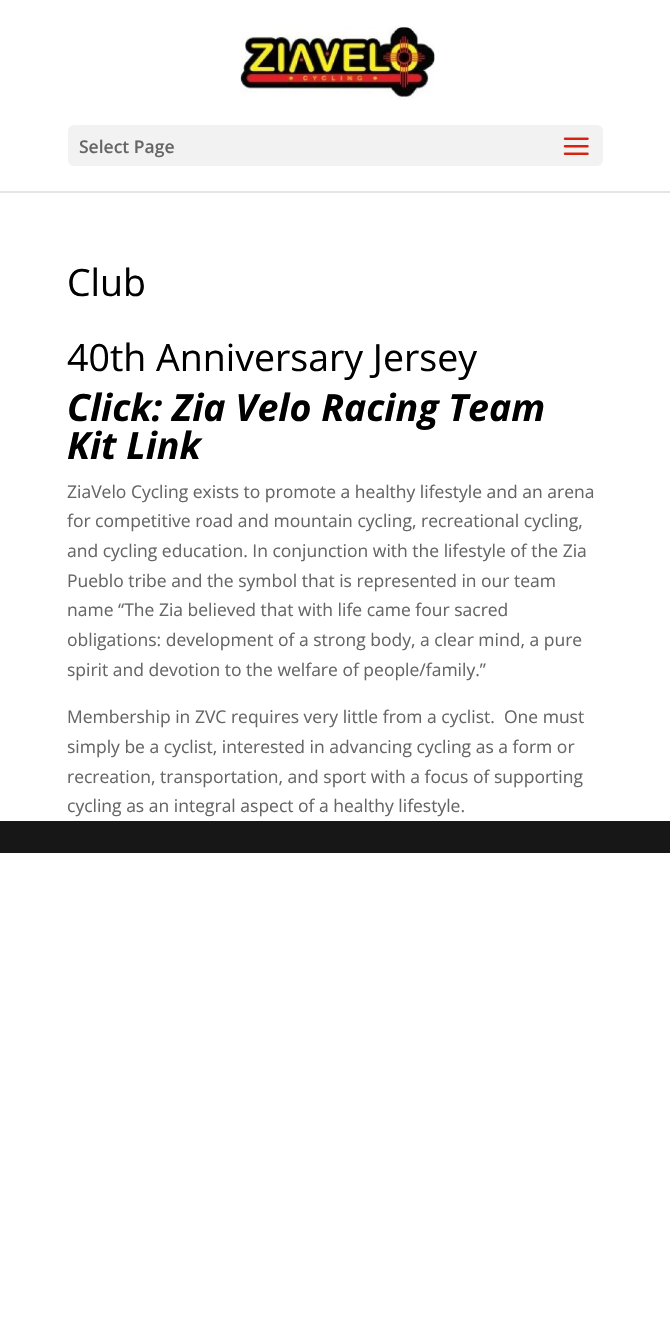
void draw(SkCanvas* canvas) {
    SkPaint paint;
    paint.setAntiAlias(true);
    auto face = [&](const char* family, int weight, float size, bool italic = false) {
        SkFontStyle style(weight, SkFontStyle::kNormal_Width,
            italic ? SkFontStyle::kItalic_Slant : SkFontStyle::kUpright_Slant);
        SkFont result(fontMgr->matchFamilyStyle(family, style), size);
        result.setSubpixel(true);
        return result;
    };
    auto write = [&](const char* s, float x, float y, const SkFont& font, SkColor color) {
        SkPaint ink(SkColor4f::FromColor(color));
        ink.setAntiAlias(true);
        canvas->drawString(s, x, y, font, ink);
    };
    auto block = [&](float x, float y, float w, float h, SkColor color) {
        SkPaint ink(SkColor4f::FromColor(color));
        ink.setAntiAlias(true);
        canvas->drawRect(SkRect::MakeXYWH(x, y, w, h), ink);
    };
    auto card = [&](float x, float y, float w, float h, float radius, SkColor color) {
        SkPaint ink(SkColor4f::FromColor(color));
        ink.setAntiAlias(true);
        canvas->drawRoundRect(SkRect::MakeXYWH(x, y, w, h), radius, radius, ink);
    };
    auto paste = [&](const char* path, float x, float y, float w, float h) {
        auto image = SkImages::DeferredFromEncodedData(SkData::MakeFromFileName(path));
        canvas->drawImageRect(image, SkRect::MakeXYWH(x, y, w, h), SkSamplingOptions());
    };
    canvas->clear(SK_ColorWHITE);
    block(0, 191, 670, 2, SkColorSetRGB(230, 230, 230));
    paste("pic1.png", 240, 26, 195, 74);
    card(68, 125, 535, 41, 6, SkColorSetRGB(242, 242, 242));
    auto kFont1 = face("Open Sans", 600, 17.5f);
    write("Select Page", 79, 153, kFont1, SkColorSetRGB(102, 102, 102));
    paste("pic2.png", 563, 137, 26, 18);
    auto kFont2 = face("Open Sans", 400, 37.5f);
    write("Club", 67, 296, kFont2, SK_ColorBLACK);
    write("40th Anniversary Jersey", 67, 371, kFont2, SK_ColorBLACK);
    auto kFont3 = face("Open Sans", 700, 37.5f, true);
    write("Click: Zia Velo Racing Team", 67, 421, kFont3, SK_ColorBLACK);
    write("Kit Link", 67, 459, kFont3, SK_ColorBLACK);
    auto kFont4 = face("Open Sans", 400, 17.5f);
    write("ZiaVelo Cycling exists to promote a healthy lifestyle and an arena", 67, 498, kFont4, SkColorSetRGB(102, 102, 102));
    write("for competitive road and mountain cycling, recreational cycling,", 67, 527, kFont4, SkColorSetRGB(102, 102, 102));
    write("and cycling education. In conjunction with the lifestyle of the Zia", 67, 557, kFont4, SkColorSetRGB(102, 102, 102));
    write("Pueblo tribe and the symbol that is represented in our team", 67, 587, kFont4, SkColorSetRGB(102, 102, 102));
    write("name “The Zia believed that with life came four sacred", 67, 616, kFont4, SkColorSetRGB(102, 102, 102));
    write("obligations: development of a strong body, a clear mind, a pure", 67, 646, kFont4, SkColorSetRGB(102, 102, 102));
    write("spirit and devotion to the welfare of people/family.”", 67, 676, kFont4, SkColorSetRGB(102, 102, 102));
    write("Membership in ZVC requires very little from a cyclist.  One must", 67, 723, kFont4, SkColorSetRGB(102, 102, 102));
    write("simply be a cyclist, interested in advancing cycling as a form or", 67, 753, kFont4, SkColorSetRGB(102, 102, 102));
    write("recreation, transportation, and sport with a focus of supporting", 67, 783, kFont4, SkColorSetRGB(102, 102, 102));
    write("cycling as an integral aspect of a healthy lifestyle.", 67, 812, kFont4, SkColorSetRGB(102, 102, 102));
    block(0, 821, 670, 32, SkColorSetRGB(23, 23, 23));
}
